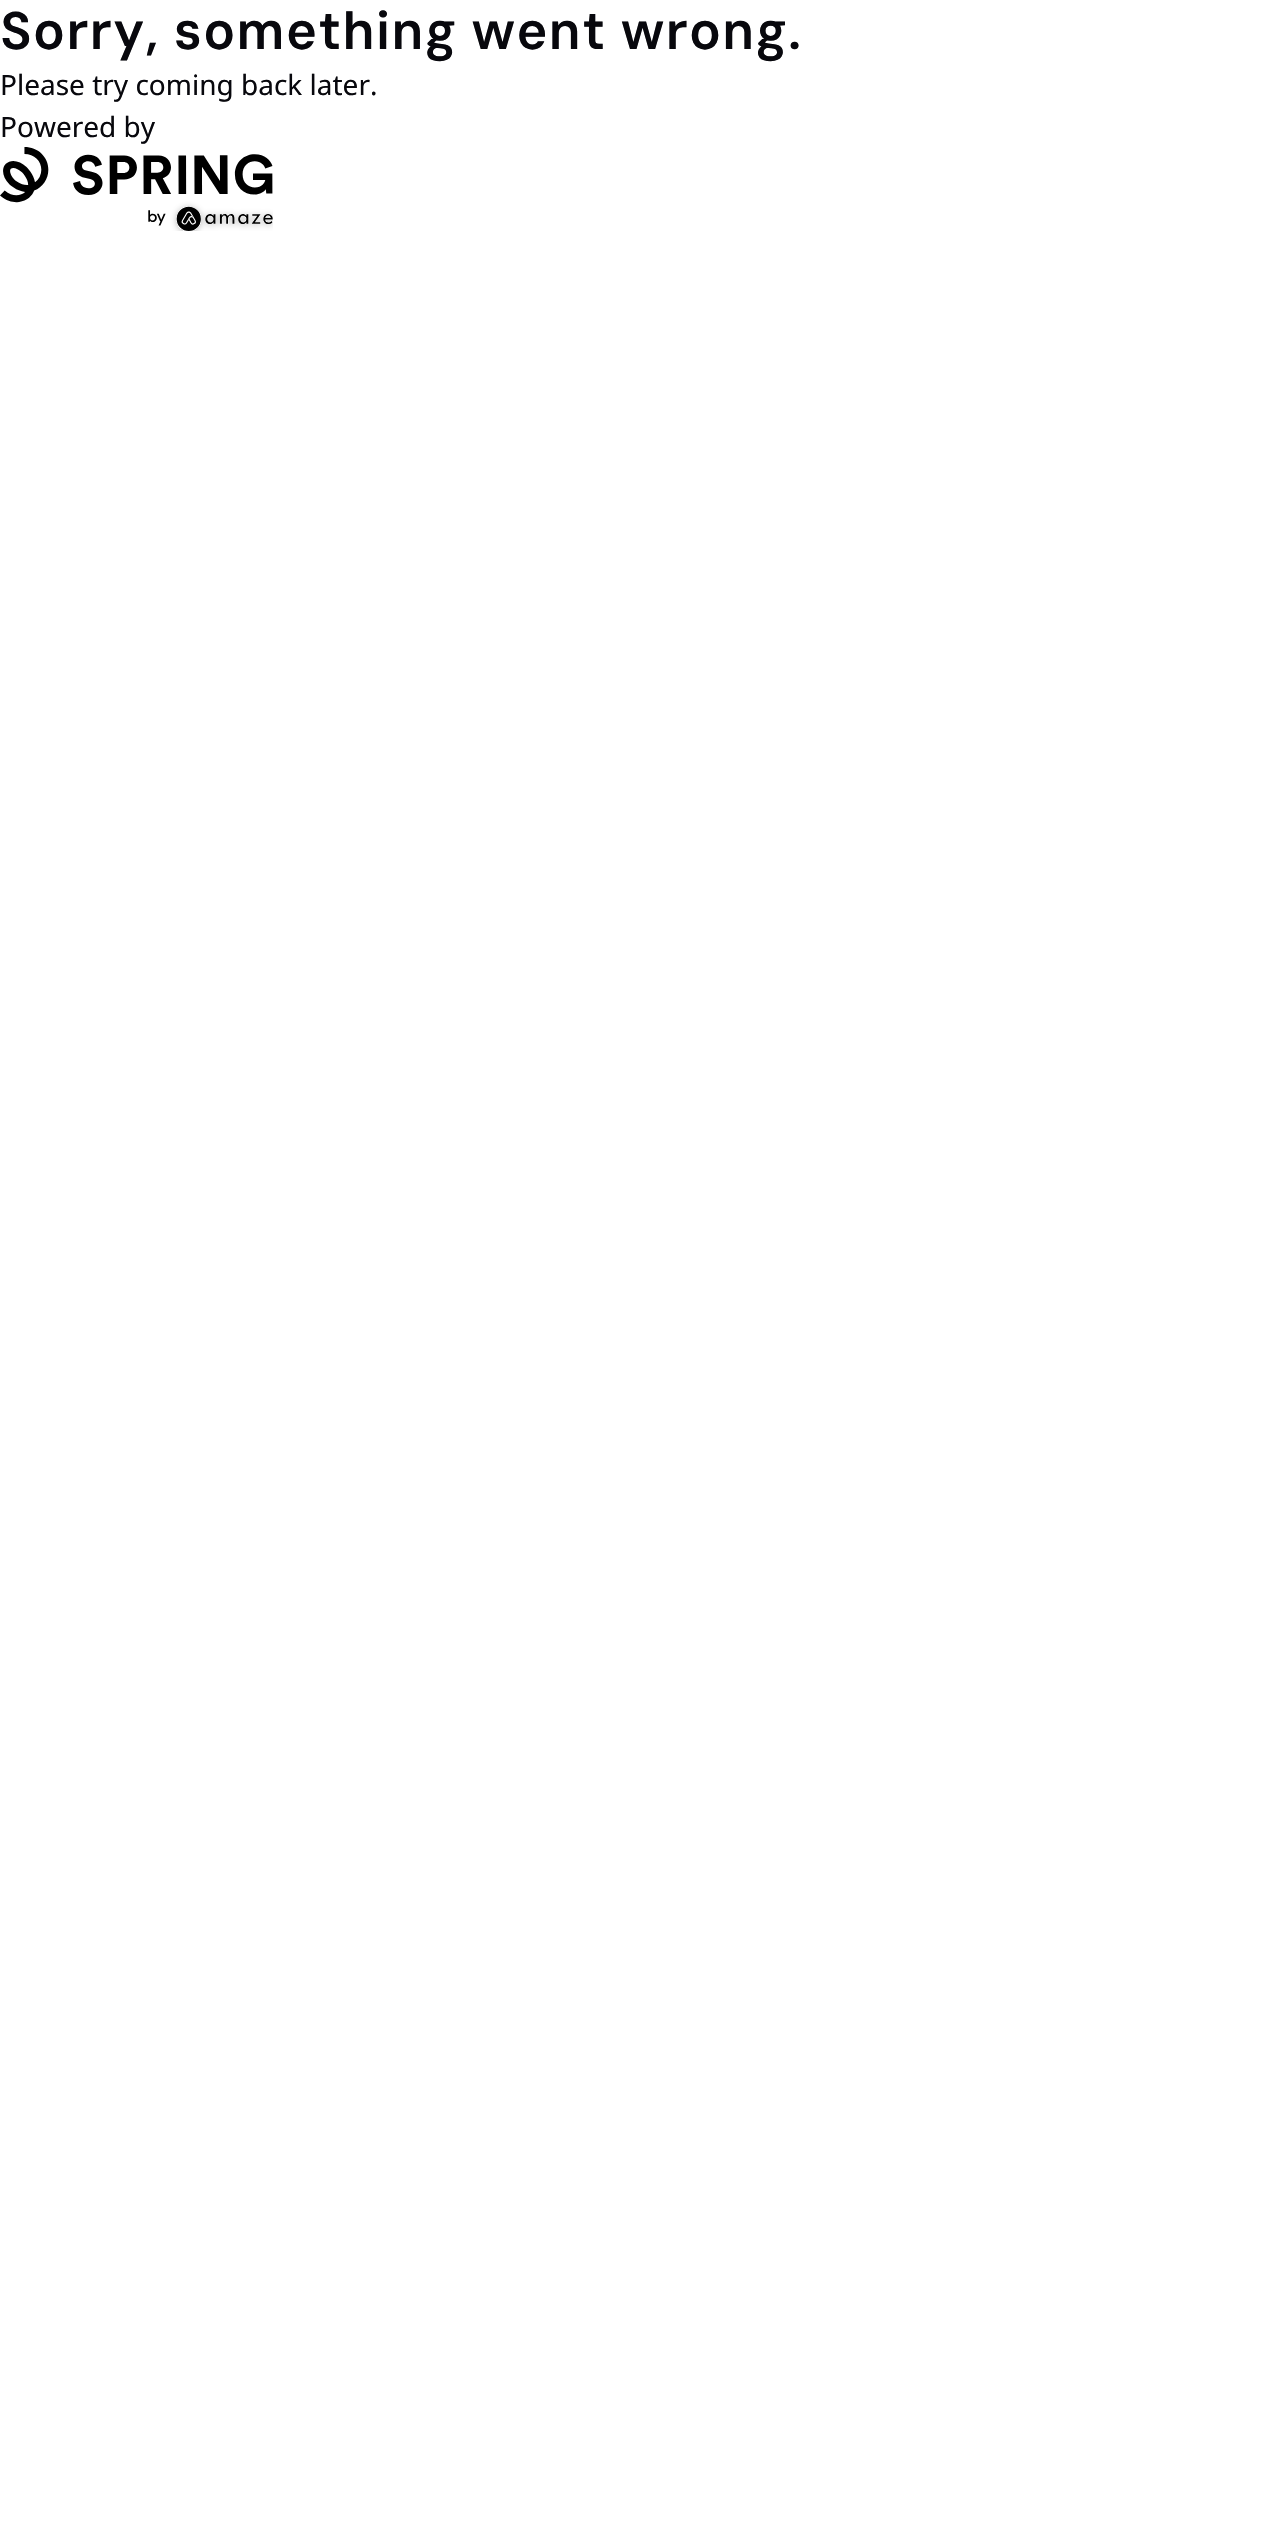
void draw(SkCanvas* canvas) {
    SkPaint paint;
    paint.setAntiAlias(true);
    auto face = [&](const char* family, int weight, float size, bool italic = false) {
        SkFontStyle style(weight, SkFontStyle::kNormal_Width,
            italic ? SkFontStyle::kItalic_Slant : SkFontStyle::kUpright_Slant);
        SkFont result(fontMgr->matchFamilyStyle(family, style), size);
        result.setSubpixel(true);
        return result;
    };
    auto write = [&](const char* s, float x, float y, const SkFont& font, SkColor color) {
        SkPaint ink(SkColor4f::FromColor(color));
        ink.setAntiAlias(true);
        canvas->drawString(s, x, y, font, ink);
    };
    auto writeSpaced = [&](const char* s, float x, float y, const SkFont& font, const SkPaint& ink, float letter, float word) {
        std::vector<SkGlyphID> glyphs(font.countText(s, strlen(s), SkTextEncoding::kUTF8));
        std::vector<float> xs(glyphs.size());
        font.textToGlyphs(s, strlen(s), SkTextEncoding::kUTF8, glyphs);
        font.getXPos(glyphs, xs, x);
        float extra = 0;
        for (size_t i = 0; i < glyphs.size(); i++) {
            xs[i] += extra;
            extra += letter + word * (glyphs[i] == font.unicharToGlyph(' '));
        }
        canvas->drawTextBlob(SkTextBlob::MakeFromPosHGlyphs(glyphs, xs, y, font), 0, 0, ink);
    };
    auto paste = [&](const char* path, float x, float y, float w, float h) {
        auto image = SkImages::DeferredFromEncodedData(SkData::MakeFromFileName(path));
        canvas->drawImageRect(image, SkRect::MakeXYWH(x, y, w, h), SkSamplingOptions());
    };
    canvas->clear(SK_ColorWHITE);
    auto kFont1 = face("DM Sans", 600, 52.5f);
    paint.setColor(SkColorSetRGB(8, 8, 13));
    writeSpaced("Sorry, something went wrong.", 0, 49, kFont1, paint, 1.3f, 0);
    auto kFont2 = face("Noto Sans", 400, 28);
    write("Please try coming back later.", 0, 95, kFont2, SkColorSetRGB(8, 8, 13));
    write("Powered by", 0, 137, kFont2, SkColorSetRGB(8, 8, 13));
    paste("pic1.png", 0, 147, 273, 84);
}
